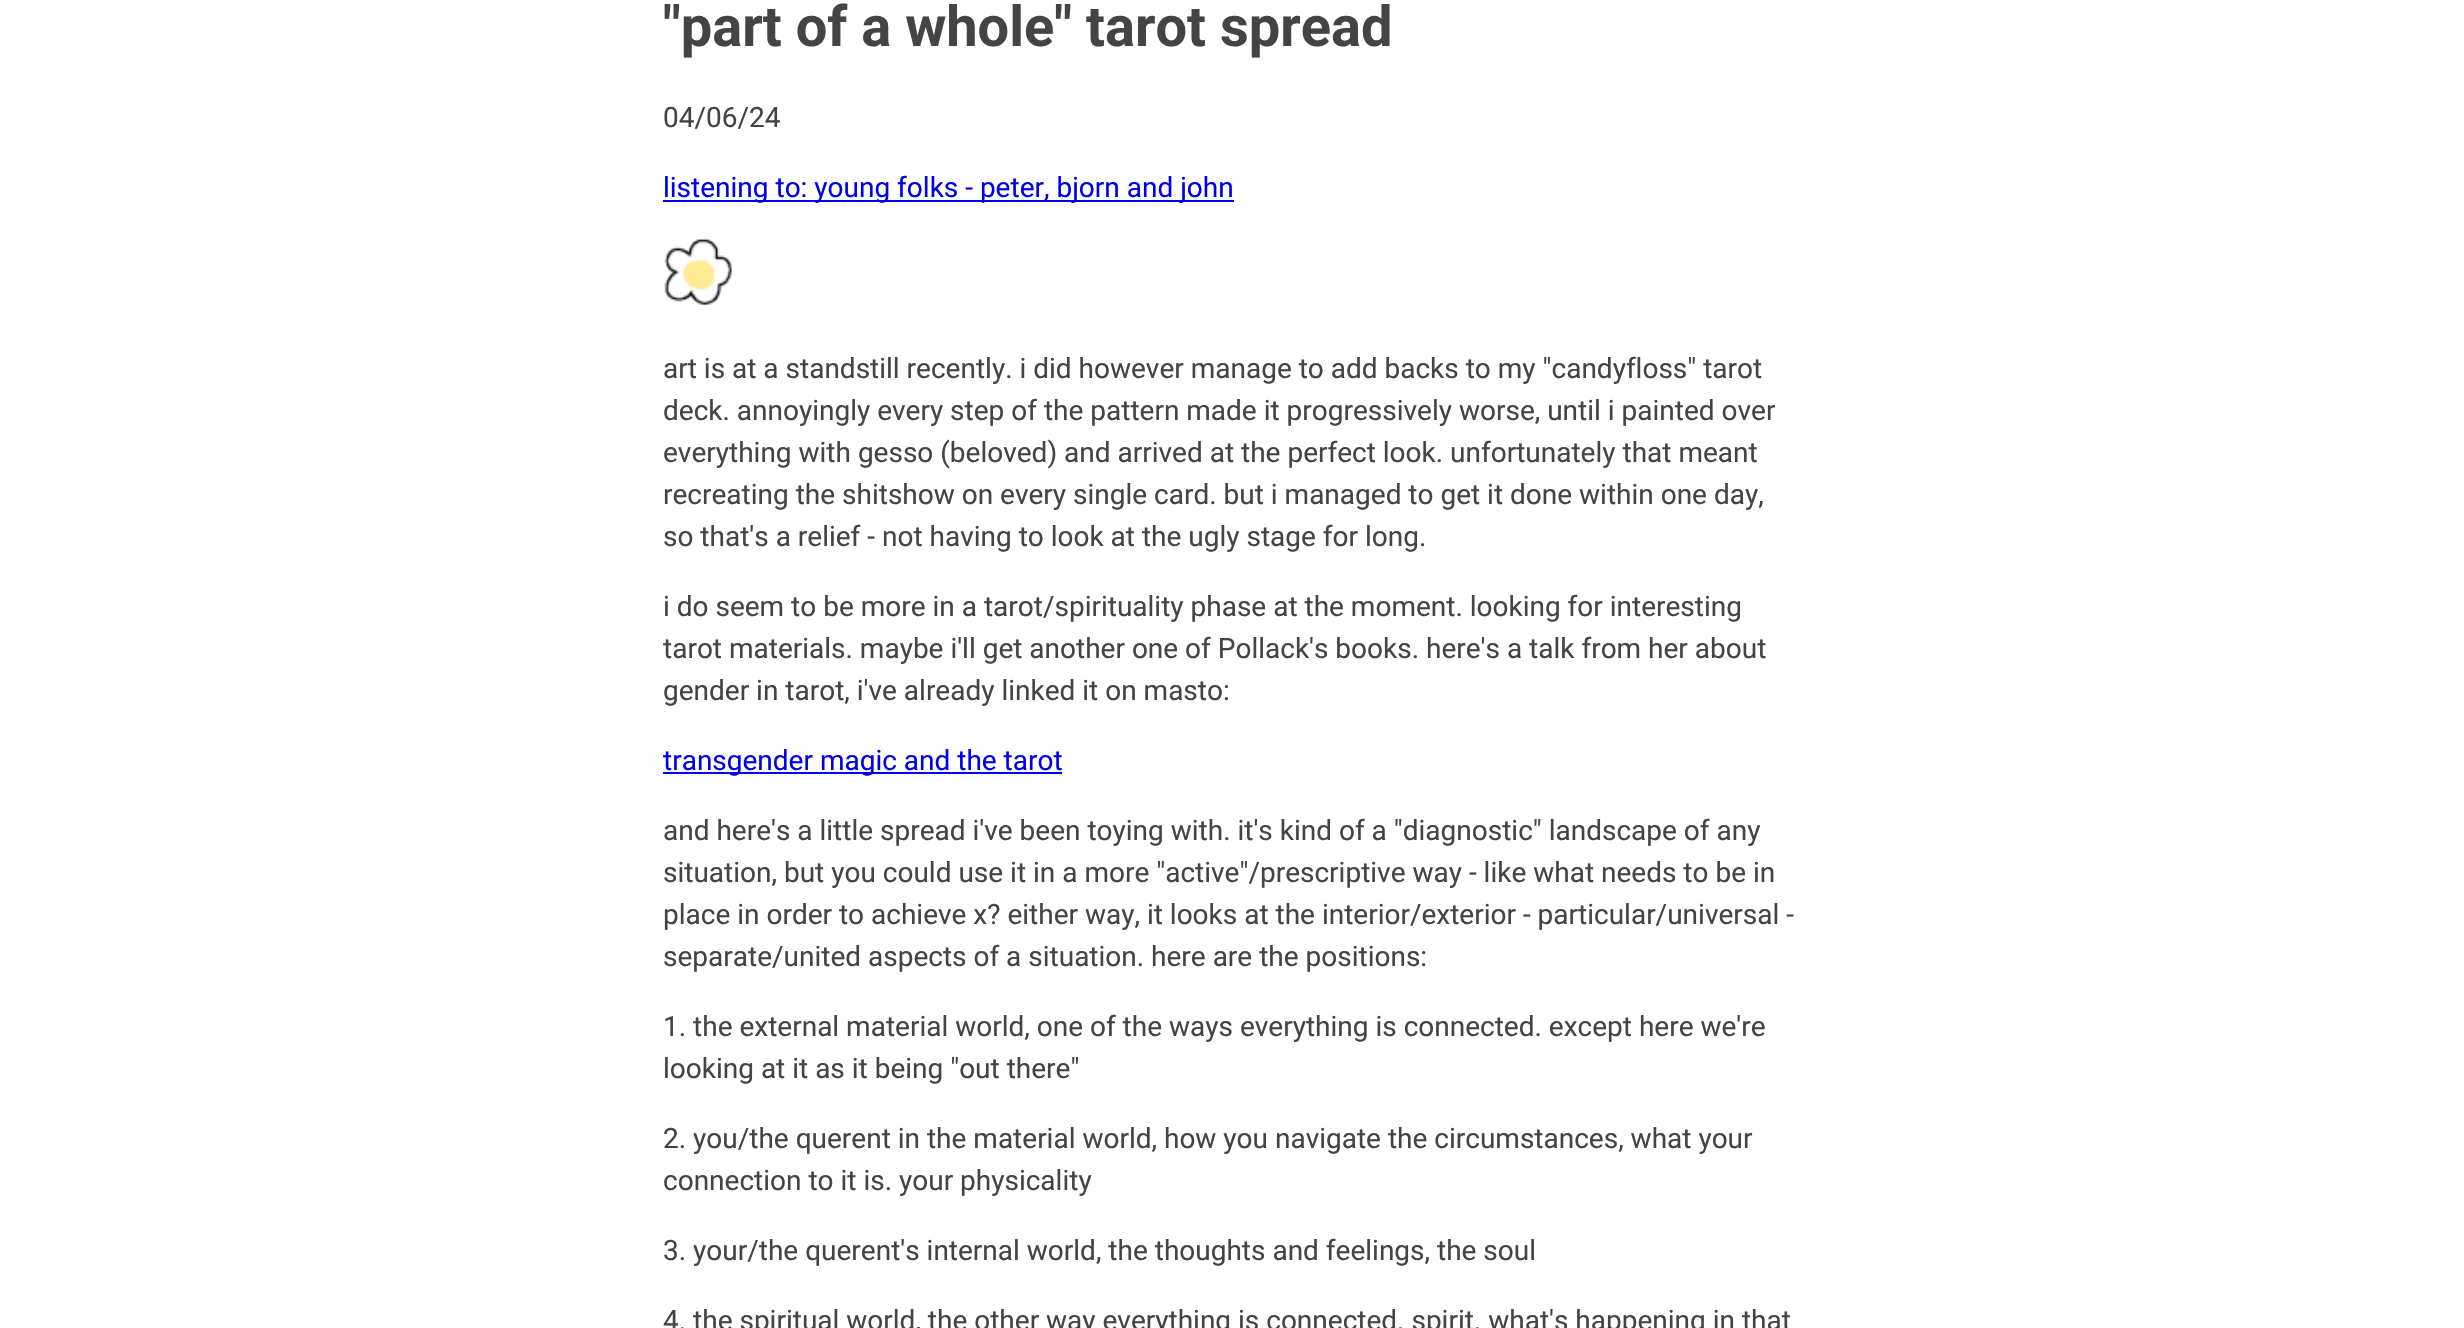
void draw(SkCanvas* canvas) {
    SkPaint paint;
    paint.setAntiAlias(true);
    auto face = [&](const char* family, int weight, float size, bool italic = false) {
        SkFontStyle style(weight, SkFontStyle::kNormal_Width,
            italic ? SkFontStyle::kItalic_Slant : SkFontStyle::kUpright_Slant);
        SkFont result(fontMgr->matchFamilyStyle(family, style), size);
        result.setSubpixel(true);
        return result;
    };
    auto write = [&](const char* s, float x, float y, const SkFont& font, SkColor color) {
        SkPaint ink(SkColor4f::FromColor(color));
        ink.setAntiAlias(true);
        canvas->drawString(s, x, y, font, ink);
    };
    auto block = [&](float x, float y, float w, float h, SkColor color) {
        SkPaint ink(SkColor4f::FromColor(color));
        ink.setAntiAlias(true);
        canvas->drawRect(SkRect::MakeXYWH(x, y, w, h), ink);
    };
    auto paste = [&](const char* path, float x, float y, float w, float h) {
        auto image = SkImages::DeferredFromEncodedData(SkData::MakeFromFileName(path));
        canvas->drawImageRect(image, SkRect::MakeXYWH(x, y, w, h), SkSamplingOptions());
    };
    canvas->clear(SK_ColorWHITE);
    auto kFont1 = face("Roboto", 700, 56);
    write("\"part of a whole\" tarot spread", 663, 46, kFont1, SkColorSetRGB(68, 68, 68));
    auto kFont2 = face("Roboto", 400, 28);
    write("04/06/24", 663, 127, kFont2, SkColorSetRGB(68, 68, 68));
    block(663, 200, 571, 2, SkColorSetRGB(0, 0, 238));
    write("listening to: young folks - peter, bjorn and john", 663, 197, kFont2, SkColorSetRGB(0, 0, 238));
    paste("pic1.png", 664, 238, 69, 68);
    write("art is at a standstill recently. i did however manage to add backs to my \"candyfloss\" tarot", 663, 378, kFont2, SkColorSetRGB(68, 68, 68));
    write("deck. annoyingly every step of the pattern made it progressively worse, until i painted over", 663, 420, kFont2, SkColorSetRGB(68, 68, 68));
    write("everything with gesso (beloved) and arrived at the perfect look. unfortunately that meant", 663, 462, kFont2, SkColorSetRGB(68, 68, 68));
    write("recreating the shitshow on every single card. but i managed to get it done within one day,", 663, 504, kFont2, SkColorSetRGB(68, 68, 68));
    write("so that's a relief - not having to look at the ugly stage for long.", 663, 546, kFont2, SkColorSetRGB(68, 68, 68));
    write("i do seem to be more in a tarot/spirituality phase at the moment. looking for interesting", 663, 616, kFont2, SkColorSetRGB(68, 68, 68));
    write("tarot materials. maybe i'll get another one of Pollack's books. here's a talk from her about", 663, 658, kFont2, SkColorSetRGB(68, 68, 68));
    write("gender in tarot, i've already linked it on masto:", 663, 700, kFont2, SkColorSetRGB(68, 68, 68));
    block(663, 772, 399, 2, SkColorSetRGB(0, 0, 238));
    write("transgender magic and the tarot", 663, 770, kFont2, SkColorSetRGB(0, 0, 238));
    write("and here's a little spread i've been toying with. it's kind of a \"diagnostic\" landscape of any", 663, 840, kFont2, SkColorSetRGB(68, 68, 68));
    write("situation, but you could use it in a more \"active\"/prescriptive way - like what needs to be in", 663, 882, kFont2, SkColorSetRGB(68, 68, 68));
    write("place in order to achieve x? either way, it looks at the interior/exterior - particular/universal -", 663, 924, kFont2, SkColorSetRGB(68, 68, 68));
    write("separate/united aspects of a situation. here are the positions:", 663, 966, kFont2, SkColorSetRGB(68, 68, 68));
    write("1. the external material world, one of the ways everything is connected. except here we're", 663, 1036, kFont2, SkColorSetRGB(68, 68, 68));
    write("looking at it as it being \"out there\"", 663, 1078, kFont2, SkColorSetRGB(68, 68, 68));
    write("2. you/the querent in the material world, how you navigate the circumstances, what your", 663, 1148, kFont2, SkColorSetRGB(68, 68, 68));
    write("connection to it is. your physicality", 663, 1190, kFont2, SkColorSetRGB(68, 68, 68));
    write("3. your/the querent's internal world, the thoughts and feelings, the soul", 663, 1260, kFont2, SkColorSetRGB(68, 68, 68));
    write("4. the spiritual world, the other way everything is connected. spirit. what's happening in that", 663, 1330, kFont2, SkColorSetRGB(68, 68, 68));
}
